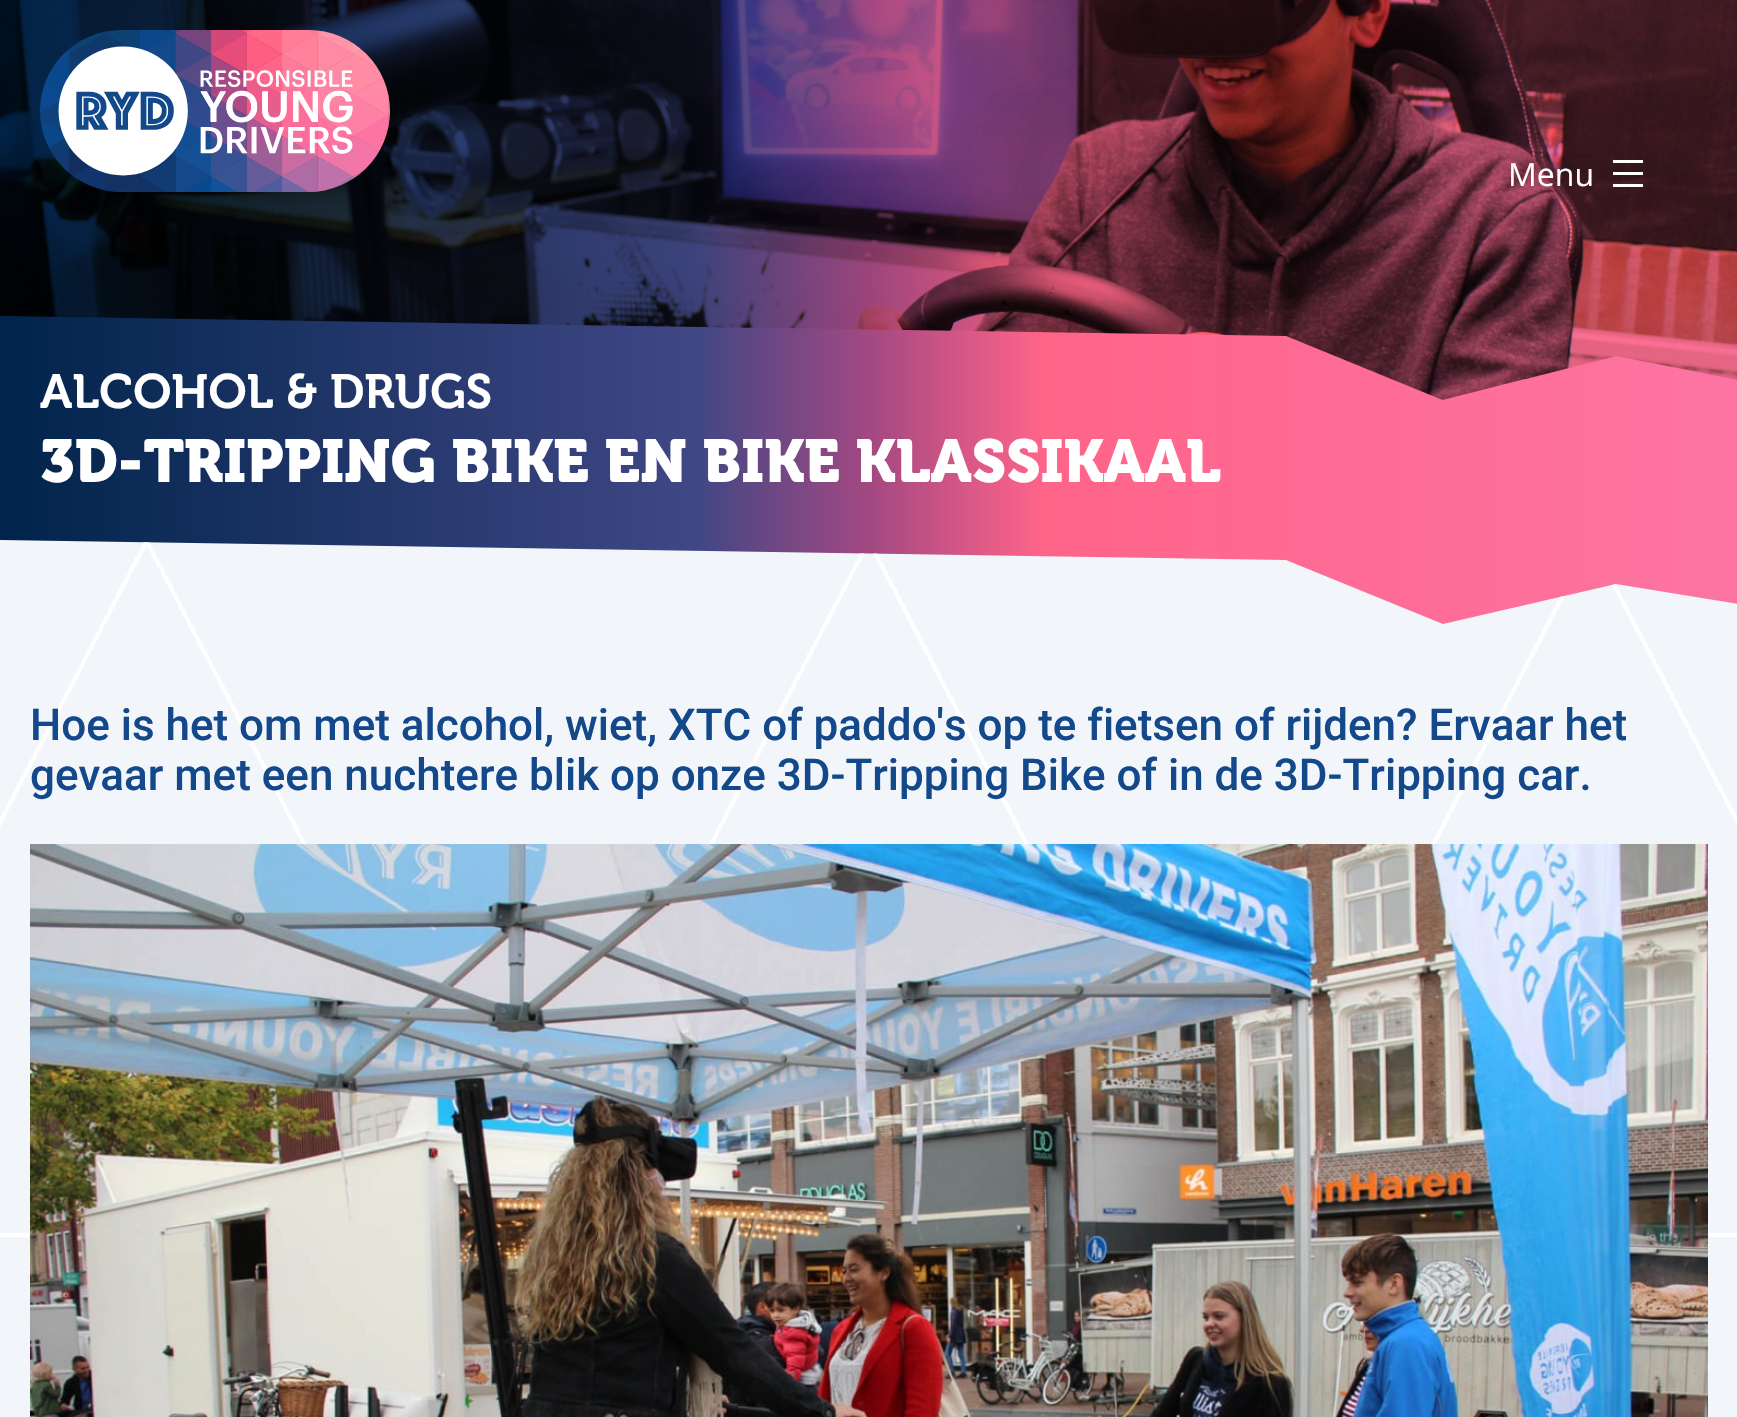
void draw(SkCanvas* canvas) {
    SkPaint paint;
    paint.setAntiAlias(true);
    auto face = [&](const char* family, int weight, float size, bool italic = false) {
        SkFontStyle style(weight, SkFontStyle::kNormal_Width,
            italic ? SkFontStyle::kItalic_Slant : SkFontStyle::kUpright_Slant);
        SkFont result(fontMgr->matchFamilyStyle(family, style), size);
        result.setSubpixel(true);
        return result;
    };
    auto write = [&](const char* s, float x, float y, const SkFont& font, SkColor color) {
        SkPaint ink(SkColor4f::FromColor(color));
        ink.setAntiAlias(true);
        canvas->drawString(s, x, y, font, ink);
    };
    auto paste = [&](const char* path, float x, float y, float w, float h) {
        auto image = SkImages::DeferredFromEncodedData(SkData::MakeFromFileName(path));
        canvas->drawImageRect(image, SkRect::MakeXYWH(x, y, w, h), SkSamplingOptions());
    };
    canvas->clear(SK_ColorWHITE);
    {
        const SkColor colors[] = {SkColorSetRGB(0, 36, 75), SkColorSetRGB(64, 71, 133), SkColorSetRGB(163, 72, 130), SkColorSetRGB(255, 100, 137), SkColorSetRGB(253, 116, 163)};
        const float stops[] = {0, 0.4f, 0.5f, 0.6f, 1};
        const SkPoint ends[] = {{0, 488}, {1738, 488}};
        paint.setShader(SkGradientShader::MakeLinear(ends, colors, stops, 5, SkTileMode::kClamp));
        paint.setAlpha(255);
    }
    canvas->drawRect(SkRect::MakeXYWH(0, 316, 1737, 308), paint);
    auto kFont1 = face("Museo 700", 600, 48);
    write("ALCOHOL & DRUGS", 40, 408, kFont1, SK_ColorWHITE);
    paste("pic3.png", 0, 0, 1737, 400);
    paste("pic1.png", 40, 30, 350, 162);
    auto kFont2 = face("Open Sans", 400, 32);
    write("Menu", 1508, 186, kFont2, SK_ColorWHITE);
    paste("pic2.png", 1613, 160, 30, 27);
    auto kFont3 = face("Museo", 700, 60);
    write("3D-TRIPPING BIKE EN BIKE KLASSIKAAL", 40, 482, kFont3, SK_ColorWHITE);
    paint.setShader(nullptr);
    paint.setColor(SkColorSetRGB(242, 245, 249));
    canvas->drawPath(SkPathBuilder().moveTo(0, 540).lineTo(0, 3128).lineTo(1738, 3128).lineTo(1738, 604).lineTo(1616, 584).lineTo(1443, 624).lineTo(1286, 560).close().detach(), paint);
    paste("pic4.png", 0, 542, 1737, 696);
    auto kFont4 = face("Roboto", 500, 44);
    write("Hoe is het om met alcohol, wiet, XTC of paddo's op te fietsen of rijden? Ervaar het", 30, 740, kFont4, SkColorSetRGB(19, 73, 139));
    write("gevaar met een nuchtere blik op onze 3D-Tripping Bike of in de 3D-Tripping car.", 30, 790, kFont4, SkColorSetRGB(19, 73, 139));
    paste("pic5.png", 30, 844, 1678, 573);
}
